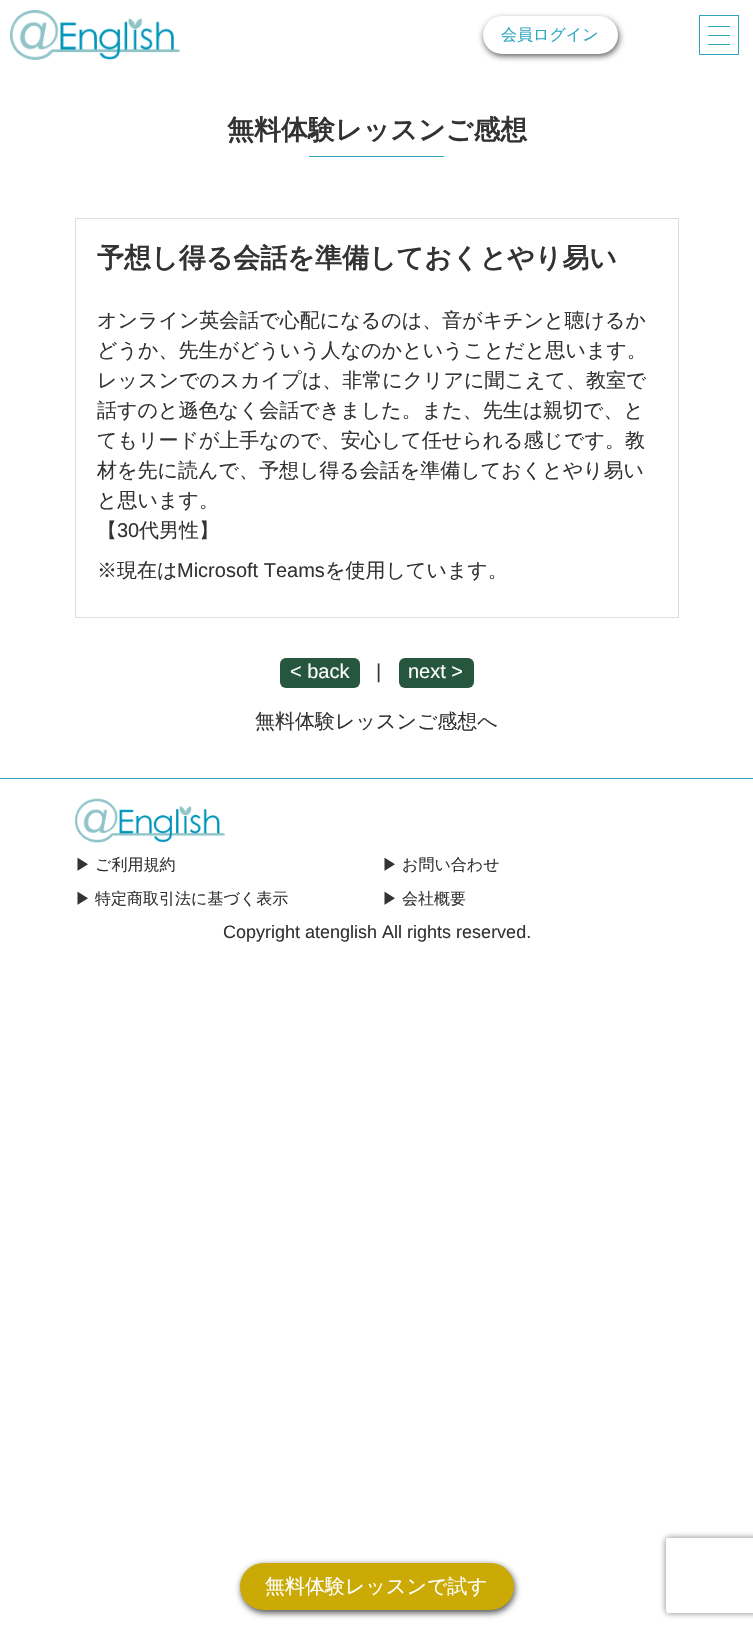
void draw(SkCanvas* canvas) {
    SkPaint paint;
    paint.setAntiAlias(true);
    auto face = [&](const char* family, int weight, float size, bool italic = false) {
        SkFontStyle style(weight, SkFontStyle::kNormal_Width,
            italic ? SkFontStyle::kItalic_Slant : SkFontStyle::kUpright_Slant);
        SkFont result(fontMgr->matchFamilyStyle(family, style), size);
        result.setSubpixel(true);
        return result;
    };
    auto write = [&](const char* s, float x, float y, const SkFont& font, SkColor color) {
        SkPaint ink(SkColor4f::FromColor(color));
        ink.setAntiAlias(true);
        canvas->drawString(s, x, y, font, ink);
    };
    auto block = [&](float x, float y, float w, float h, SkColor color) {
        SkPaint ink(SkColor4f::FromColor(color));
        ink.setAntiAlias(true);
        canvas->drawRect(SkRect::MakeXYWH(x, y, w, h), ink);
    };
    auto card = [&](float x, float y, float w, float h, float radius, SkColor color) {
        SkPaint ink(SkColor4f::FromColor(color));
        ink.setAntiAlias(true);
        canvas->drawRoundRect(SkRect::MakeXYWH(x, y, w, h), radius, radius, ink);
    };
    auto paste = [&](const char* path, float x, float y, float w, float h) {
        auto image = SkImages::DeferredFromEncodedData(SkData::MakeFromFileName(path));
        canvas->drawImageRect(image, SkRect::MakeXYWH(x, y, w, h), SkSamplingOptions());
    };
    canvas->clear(SK_ColorWHITE);
    paste("pic1.png", 10, 10, 170, 50);
    paint.setColor(SkColorSetRGB(85, 85, 85));
    paint.setMaskFilter(SkMaskFilter::MakeBlur(kNormal_SkBlurStyle, 3));
    canvas->drawRoundRect(SkRect::MakeXYWH(484, 19, 135, 37), 18.5f, 18.5f, paint);
    paint.setMaskFilter(nullptr);
    card(483, 16, 135, 38, 19, SK_ColorWHITE);
    auto kFont1 = face("WenQuanYi Zen Hei", 500, 16);
    write("会員ログイン", 501, 40, kFont1, SkColorSetRGB(46, 166, 192));
    paint.setStyle(SkPaint::kStroke_Style);
    paint.setStrokeWidth(1);
    paint.setColor(SkColorSetRGB(46, 166, 192));
    canvas->drawRect(SkRect::MakeXYWH(699.5f, 15.5f, 39, 39), paint);
    block(708, 26, 22, 1, SkColorSetRGB(46, 166, 192));
    block(708, 35, 22, 1, SkColorSetRGB(46, 166, 192));
    block(708, 44, 22, 1, SkColorSetRGB(46, 166, 192));
    auto kFont2 = face("WenQuanYi Zen Hei", 700, 27);
    write("無料体験レッスンご感想", 227, 139, kFont2, SkColorSetRGB(51, 51, 51));
    block(309, 156, 135, 1, SkColorSetRGB(46, 166, 192));
    paint.setColor(SkColorSetRGB(221, 221, 221));
    canvas->drawRect(SkRect::MakeXYWH(75.5f, 218.5f, 603, 399), paint);
    write("予想し得る会話を準備しておくとやり易い", 97, 267, kFont2, SkColorSetRGB(51, 51, 51));
    auto kFont3 = face("WenQuanYi Zen Hei", 500, 20);
    write("オンライン英会話で心配になるのは、音がキチンと聴けるか", 97, 327, kFont3, SkColorSetRGB(51, 51, 51));
    write("どうか、先生がどういう人なのかということだと思います。", 97, 357, kFont3, SkColorSetRGB(51, 51, 51));
    write("レッスンでのスカイプは、非常にクリアに聞こえて、教室で", 97, 387, kFont3, SkColorSetRGB(51, 51, 51));
    write("話すのと遜色なく会話できました。また、先生は親切で、と", 97, 417, kFont3, SkColorSetRGB(51, 51, 51));
    write("てもリードが上手なので、安心して任せられる感じです。教", 97, 447, kFont3, SkColorSetRGB(51, 51, 51));
    write("材を先に読んで、予想し得る会話を準備しておくとやり易い", 97, 477, kFont3, SkColorSetRGB(51, 51, 51));
    write("と思います。", 97, 507, kFont3, SkColorSetRGB(51, 51, 51));
    write("【", 97, 537, kFont3, SkColorSetRGB(51, 51, 51));
    auto kFont4 = face("Liberation Sans", 400, 20);
    write("30", 117, 537, kFont4, SkColorSetRGB(51, 51, 51));
    write("代男性】", 139, 537, kFont3, SkColorSetRGB(51, 51, 51));
    write("※現在は", 97, 577, kFont3, SkColorSetRGB(51, 51, 51));
    write("Microsoft Teams", 177, 577, kFont4, SkColorSetRGB(51, 51, 51));
    write("を使用しています。", 325, 577, kFont3, SkColorSetRGB(51, 51, 51));
    card(280, 658, 80, 30, 6, SkColorSetRGB(39, 86, 63));
    write("< back", 290, 678, kFont4, SK_ColorWHITE);
    write("|", 376, 678, kFont4, SkColorSetRGB(51, 51, 51));
    card(399, 658, 75, 30, 6, SkColorSetRGB(39, 86, 63));
    write("next >", 408, 678, kFont4, SK_ColorWHITE);
    write("無料体験レッスンご感想へ", 255, 728, kFont3, SkColorSetRGB(51, 51, 51));
    block(0, 778, 753, 1, SkColorSetRGB(46, 166, 192));
    paste("pic2.png", 75, 798, 150, 45);
    write("▶", 75, 870, kFont1, SkColorSetRGB(51, 51, 51));
    write("ご利用規約", 95, 870, kFont1, SkColorSetRGB(51, 51, 51));
    write("▶", 382, 870, kFont1, SkColorSetRGB(51, 51, 51));
    write("お問い合わせ", 402, 870, kFont1, SkColorSetRGB(51, 51, 51));
    write("▶", 75, 904, kFont1, SkColorSetRGB(51, 51, 51));
    write("特定商取引法に基づく表示", 95, 904, kFont1, SkColorSetRGB(51, 51, 51));
    write("▶", 382, 904, kFont1, SkColorSetRGB(51, 51, 51));
    write("会社概要", 402, 904, kFont1, SkColorSetRGB(51, 51, 51));
    auto kFont5 = face("Liberation Sans", 400, 18);
    write("Copyright atenglish All rights reserved.", 223, 938, kFont5, SkColorSetRGB(51, 51, 51));
    paint.setStyle(SkPaint::kFill_Style);
    paint.setColor(SkColorSetRGB(85, 85, 85));
    paint.setMaskFilter(SkMaskFilter::MakeBlur(kNormal_SkBlurStyle, 3));
    canvas->drawRoundRect(SkRect::MakeXYWH(241, 1565, 274, 48), 24, 24, paint);
    paint.setMaskFilter(nullptr);
    card(240, 1563, 274, 47, 23.5f, SkColorSetRGB(203, 170, 5));
    write("無料体験レッスンで試す", 265, 1593, kFont3, SK_ColorWHITE);
    canvas->save();
    canvas->clipPath(SkPathBuilder(SkPathFillType::kEvenOdd).moveTo(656, 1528).lineTo(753, 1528).lineTo(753, 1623).lineTo(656, 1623).close().moveTo(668.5f, 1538).lineTo(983.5f, 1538).cubicTo(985, 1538, 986, 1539, 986, 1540.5f).lineTo(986, 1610.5f).cubicTo(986, 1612, 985, 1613, 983.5f, 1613).lineTo(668.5f, 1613).cubicTo(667, 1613, 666, 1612, 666, 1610.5f).lineTo(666, 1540.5f).cubicTo(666, 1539, 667, 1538, 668.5f, 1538).close().detach(), true);
    paint.setColor(SkColorSetRGB(128, 128, 128));
    paint.setMaskFilter(SkMaskFilter::MakeBlur(kNormal_SkBlurStyle, 3));
    canvas->drawRoundRect(SkRect::MakeXYWH(666, 1538, 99, 75), 2.5f, 2.5f, paint);
    paint.setMaskFilter(nullptr);
    canvas->restore();
}
